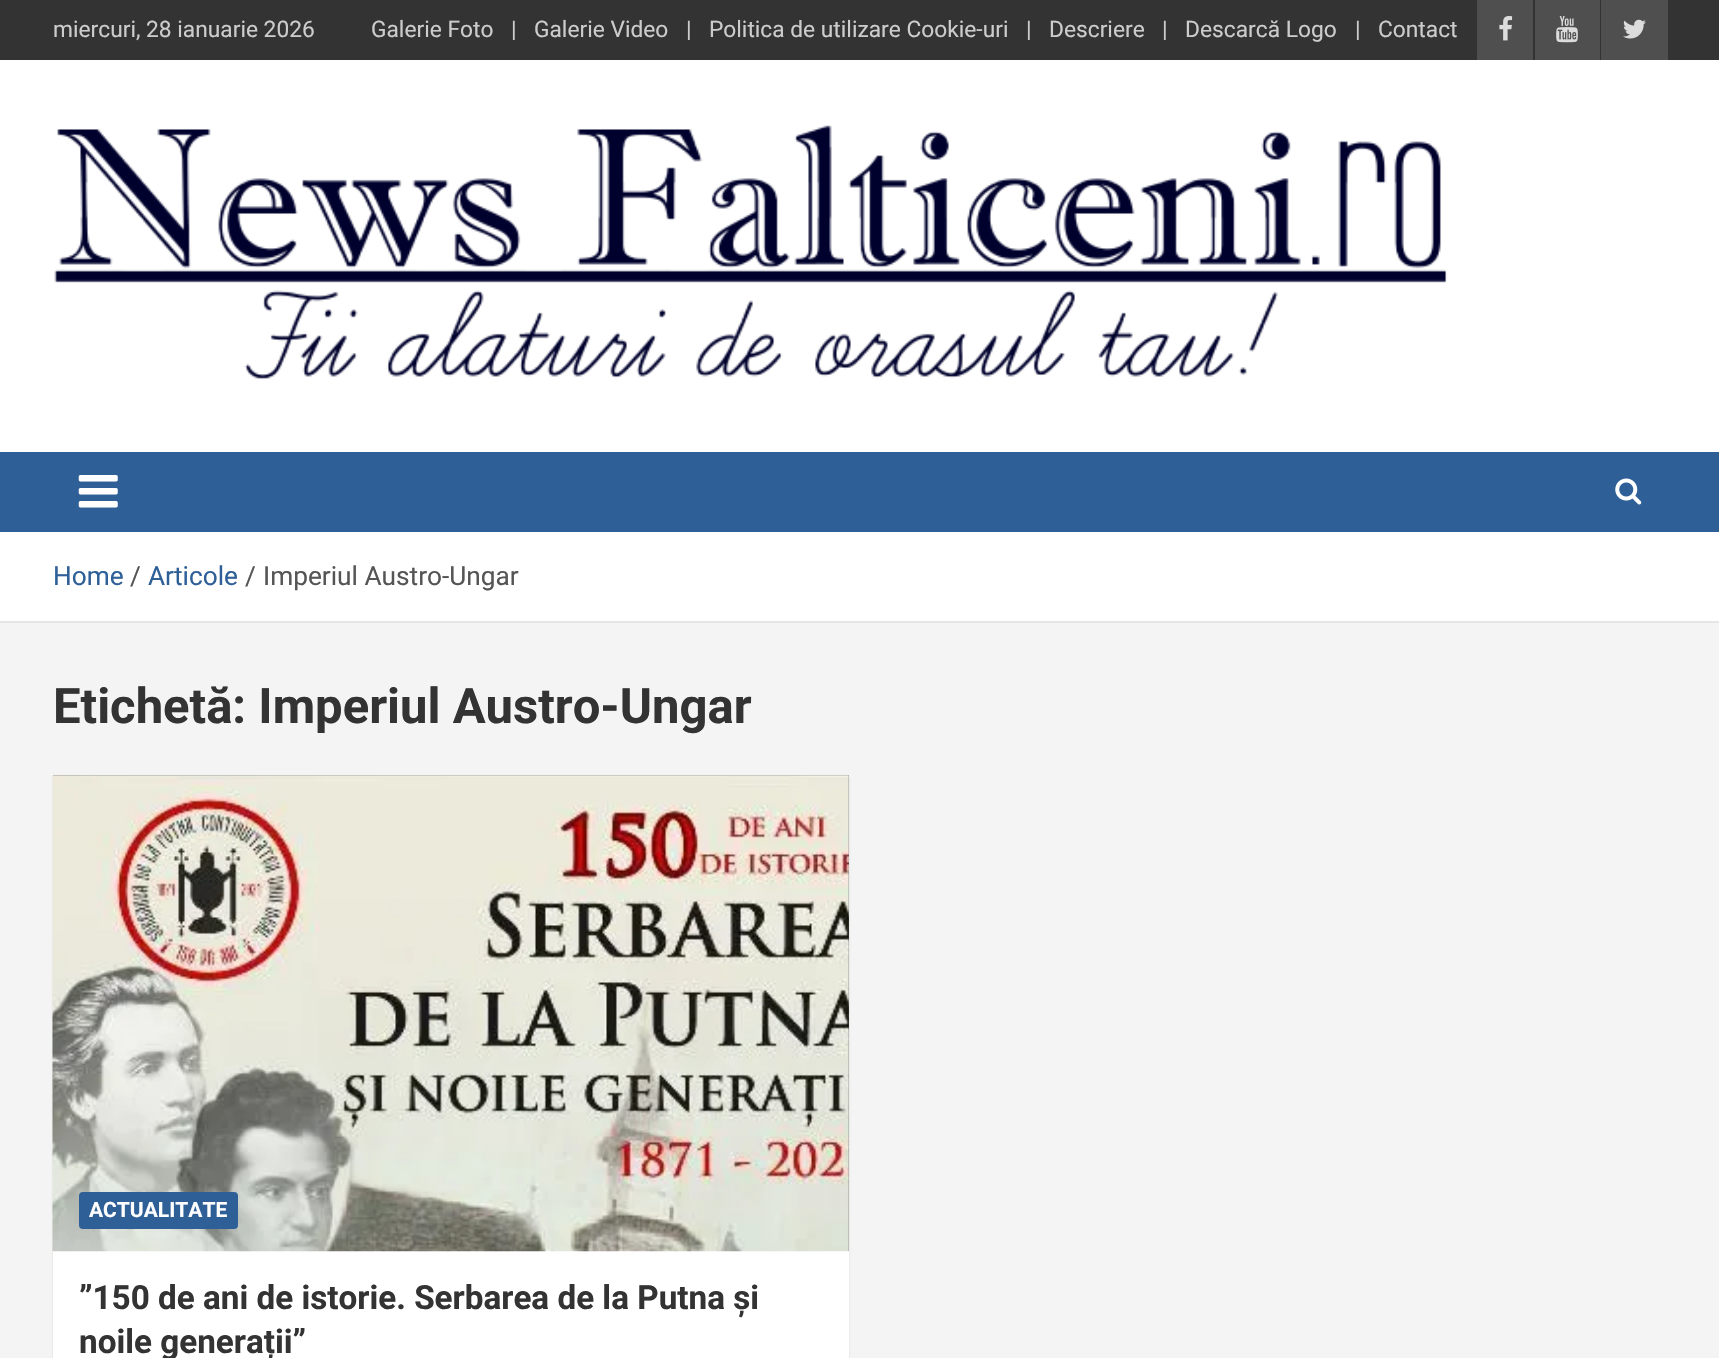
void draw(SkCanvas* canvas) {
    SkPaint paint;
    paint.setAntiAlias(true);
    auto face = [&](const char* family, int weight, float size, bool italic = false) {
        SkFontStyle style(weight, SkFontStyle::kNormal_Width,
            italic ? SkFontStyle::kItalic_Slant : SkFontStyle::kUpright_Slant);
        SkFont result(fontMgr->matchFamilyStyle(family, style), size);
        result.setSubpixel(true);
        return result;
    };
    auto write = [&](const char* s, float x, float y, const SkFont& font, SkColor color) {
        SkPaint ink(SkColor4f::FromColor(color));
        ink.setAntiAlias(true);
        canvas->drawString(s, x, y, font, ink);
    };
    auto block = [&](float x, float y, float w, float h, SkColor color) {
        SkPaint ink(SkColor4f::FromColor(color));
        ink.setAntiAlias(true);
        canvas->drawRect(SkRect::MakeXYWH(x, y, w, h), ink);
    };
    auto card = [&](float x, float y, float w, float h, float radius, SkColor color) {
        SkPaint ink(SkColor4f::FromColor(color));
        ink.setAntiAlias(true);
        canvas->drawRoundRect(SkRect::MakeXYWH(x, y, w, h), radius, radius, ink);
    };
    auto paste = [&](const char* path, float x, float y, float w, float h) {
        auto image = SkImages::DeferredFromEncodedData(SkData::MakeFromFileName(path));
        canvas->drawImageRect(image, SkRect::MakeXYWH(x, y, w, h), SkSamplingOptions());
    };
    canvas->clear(SkColorSetRGB(244, 244, 244));
    block(0, 0, 1719, 60, SkColorSetRGB(51, 51, 51));
    auto kFont1 = face("Roboto", 400, 22.75f);
    write("miercuri, 28 ianuarie 2026", 53, 37, kFont1, SkColorSetRGB(204, 204, 204));
    write("Galerie Foto", 371, 37, kFont1, SkColorSetRGB(204, 204, 204));
    write("|", 511, 37, kFont1, SkColorSetRGB(204, 204, 204));
    write("Galerie Video", 534, 37, kFont1, SkColorSetRGB(204, 204, 204));
    write("|", 686, 37, kFont1, SkColorSetRGB(204, 204, 204));
    write("Politica de utilizare Cookie-uri", 709, 37, kFont1, SkColorSetRGB(204, 204, 204));
    write("|", 1026, 37, kFont1, SkColorSetRGB(204, 204, 204));
    write("Descriere", 1049, 37, kFont1, SkColorSetRGB(204, 204, 204));
    write("|", 1162, 37, kFont1, SkColorSetRGB(204, 204, 204));
    write("Descarcă Logo", 1185, 37, kFont1, SkColorSetRGB(204, 204, 204));
    write("|", 1355, 37, kFont1, SkColorSetRGB(204, 204, 204));
    write("Contact", 1378, 37, kFont1, SkColorSetRGB(204, 204, 204));
    block(1477, 0, 56, 60, SkColorSetRGB(79, 79, 79));
    paste("pic1.png", 1499, 16, 14, 25);
    block(1535, 0, 65, 60, SkColorSetRGB(79, 79, 79));
    paste("pic2.png", 1556, 16, 22, 27);
    block(1601, 0, 67, 60, SkColorSetRGB(79, 79, 79));
    paste("pic3.png", 1623, 19, 23, 20);
    block(0, 60, 1719, 392, SK_ColorWHITE);
    paste("pic4.png", 54, 125, 1394, 255);
    block(0, 452, 1719, 80, SkColorSetRGB(46, 95, 151));
    paste("pic5.png", 78, 475, 40, 33);
    paste("pic6.png", 1615, 478, 27, 27);
    block(0, 532, 1719, 89, SK_ColorWHITE);
    block(0, 621, 1719, 2, SkColorSetRGB(230, 230, 230));
    auto kFont2 = face("Roboto", 400, 26.25f);
    write("Home", 53, 585, kFont2, SkColorSetRGB(46, 95, 151));
    write("/", 130, 585, kFont2, SkColorSetRGB(85, 85, 85));
    write("Articole", 148, 585, kFont2, SkColorSetRGB(46, 95, 151));
    write("/", 245, 585, kFont2, SkColorSetRGB(85, 85, 85));
    write("Imperiul Austro-Ungar", 263, 585, kFont2, SkColorSetRGB(85, 85, 85));
    auto kFont3 = face("Roboto", 700, 49);
    write("Etichetă: Imperiul Austro-Ungar", 53, 723, kFont3, SkColorSetRGB(51, 51, 51));
    paint.setColor(SkColorSetARGB(26, 0, 0, 0));
    paint.setMaskFilter(SkMaskFilter::MakeBlur(kNormal_SkBlurStyle, 1));
    canvas->drawRect(SkRect::MakeXYWH(53, 777, 796, 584), paint);
    paint.setMaskFilter(nullptr);
    block(53, 1251, 796, 107, SK_ColorWHITE);
    block(53, 775, 796, 476, SkColorSetRGB(85, 85, 85));
    paste("pic7.png", 52, 775, 797, 477);
    card(79, 1192, 159, 37, 4, SkColorSetRGB(46, 95, 151));
    auto kFont4 = face("Roboto", 700, 21);
    write("ACTUALITATE", 89, 1217, kFont4, SK_ColorWHITE);
    auto kFont5 = face("Roboto", 700, 33.25f);
    write("”150 de ani de istorie. Serbarea de la Putna și", 79, 1309, kFont5, SkColorSetRGB(51, 51, 51));
    write("noile generații”", 79, 1353, kFont5, SkColorSetRGB(51, 51, 51));
}
